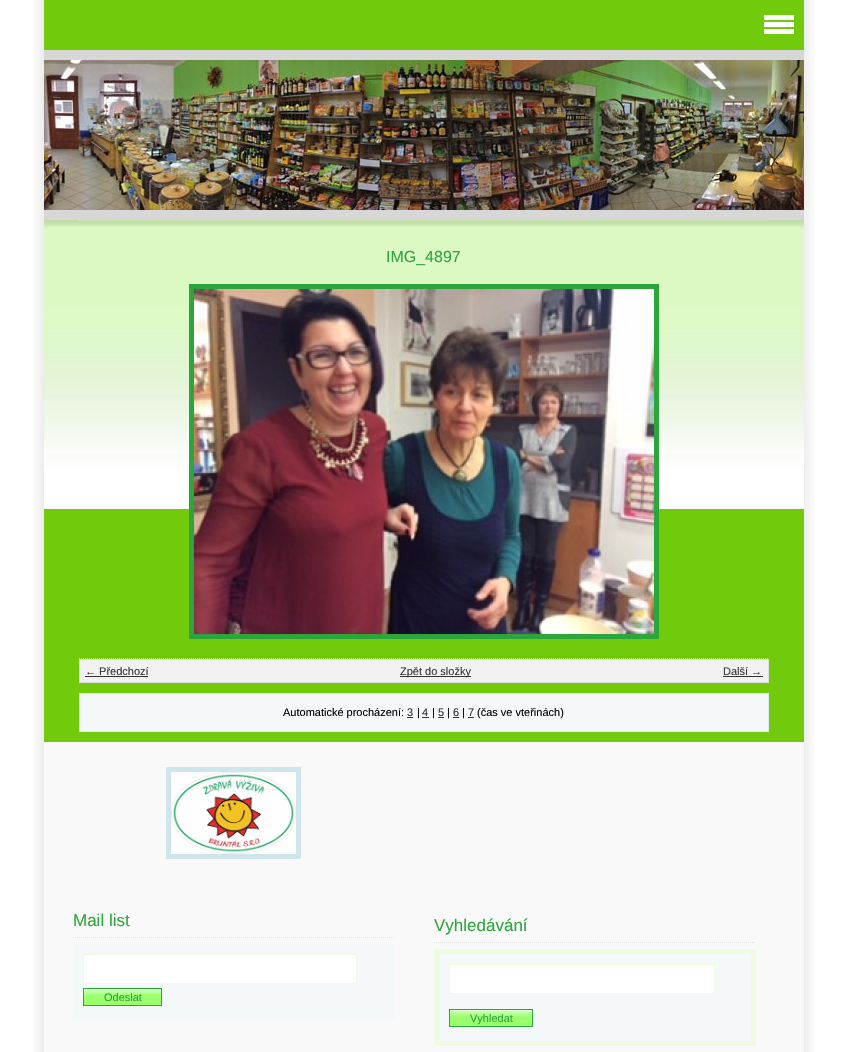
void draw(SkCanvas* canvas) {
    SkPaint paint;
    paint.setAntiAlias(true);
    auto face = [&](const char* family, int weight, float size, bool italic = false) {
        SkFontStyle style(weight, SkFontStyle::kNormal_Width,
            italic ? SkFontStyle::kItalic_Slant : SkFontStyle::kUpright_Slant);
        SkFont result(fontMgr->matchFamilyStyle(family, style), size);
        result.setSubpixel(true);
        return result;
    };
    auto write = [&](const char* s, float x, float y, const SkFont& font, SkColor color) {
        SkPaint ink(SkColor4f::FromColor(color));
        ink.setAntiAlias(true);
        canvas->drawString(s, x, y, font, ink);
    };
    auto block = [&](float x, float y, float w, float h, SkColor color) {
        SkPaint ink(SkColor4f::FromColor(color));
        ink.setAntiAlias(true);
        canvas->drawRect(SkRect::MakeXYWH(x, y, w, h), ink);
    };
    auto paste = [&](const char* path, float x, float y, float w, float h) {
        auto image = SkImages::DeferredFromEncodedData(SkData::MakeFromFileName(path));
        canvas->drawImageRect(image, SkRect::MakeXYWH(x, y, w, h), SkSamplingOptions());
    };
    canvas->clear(SK_ColorWHITE);
    paste("pic1.png", 33, 0, 781, 1052);
    block(44, 0, 760, 742, SkColorSetRGB(114, 202, 13));
    block(764, 15, 30, 5, SK_ColorWHITE);
    block(764, 22, 30, 5, SK_ColorWHITE);
    block(764, 29, 30, 5, SK_ColorWHITE);
    paste("pic2.png", 44, 50, 760, 170);
    paste("pic3.png", 44, 60, 760, 150);
    paste("pic4.png", 44, 220, 760, 289);
    paste("pic5.png", 79, 220, 689, 1);
    paste("pic6.png", 79, 658, 689, 1);
    auto kFont1 = face("Liberation Sans", 400, 16);
    write("IMG_4897", 386, 262, kFont1, SkColorSetRGB(45, 165, 61));
    paint.setStyle(SkPaint::kStroke_Style);
    paint.setStrokeWidth(5);
    paint.setColor(SkColorSetRGB(45, 165, 61));
    canvas->drawRect(SkRect::MakeXYWH(191.5f, 286.5f, 465, 350), paint);
    paste("pic7.png", 194, 289, 460, 345);
    paint.setStyle(SkPaint::kFill_Style);
    paint.setColor(SkColorSetRGB(242, 242, 242));
    canvas->drawRect(SkRect::MakeXYWH(79.5f, 659.5f, 689, 23), paint);
    paint.setStyle(SkPaint::kStroke_Style);
    paint.setStrokeWidth(1);
    paint.setColor(SkColorSetRGB(221, 221, 221));
    canvas->drawRect(SkRect::MakeXYWH(79.5f, 659.5f, 689, 23), paint);
    auto kFont2 = face("Liberation Sans", 400, 11);
    write("← Předchozí", 85, 675, kFont2, SkColorSetRGB(51, 51, 51));
    block(85, 676, 63, 1, SkColorSetRGB(51, 51, 51));
    block(400, 676, 71, 1, SkColorSetRGB(51, 51, 51));
    write("Zpět do složky", 400, 675, kFont2, SkColorSetRGB(51, 51, 51));
    write("Další →", 723, 675, kFont2, SkColorSetRGB(51, 51, 51));
    block(723, 676, 40, 1, SkColorSetRGB(51, 51, 51));
    paint.setStyle(SkPaint::kFill_Style);
    paint.setColor(SkColorSetRGB(244, 248, 248));
    canvas->drawRect(SkRect::MakeXYWH(79.5f, 693.5f, 689, 38), paint);
    paint.setStyle(SkPaint::kStroke_Style);
    paint.setColor(SkColorSetRGB(219, 236, 240));
    canvas->drawRect(SkRect::MakeXYWH(79.5f, 693.5f, 689, 38), paint);
    write("Automatické procházení:", 283, 716, kFont2, SK_ColorBLACK);
    write("3", 407, 716, kFont2, SkColorSetRGB(51, 51, 51));
    block(407, 717, 6, 1, SkColorSetRGB(51, 51, 51));
    write("|", 417, 716, kFont2, SK_ColorBLACK);
    write("4", 422, 716, kFont2, SkColorSetRGB(51, 51, 51));
    block(422, 717, 7, 1, SkColorSetRGB(51, 51, 51));
    write("|", 432, 716, kFont2, SK_ColorBLACK);
    write("5", 438, 716, kFont2, SkColorSetRGB(51, 51, 51));
    block(438, 717, 6, 1, SkColorSetRGB(51, 51, 51));
    write("|", 447, 716, kFont2, SK_ColorBLACK);
    write("6", 453, 716, kFont2, SkColorSetRGB(51, 51, 51));
    block(453, 717, 6, 1, SkColorSetRGB(51, 51, 51));
    write("|", 462, 716, kFont2, SK_ColorBLACK);
    write("7", 468, 716, kFont2, SkColorSetRGB(51, 51, 51));
    block(468, 717, 6, 1, SkColorSetRGB(51, 51, 51));
    write("(čas ve vteřinách)", 477, 716, kFont2, SK_ColorBLACK);
    block(44, 742, 760, 310, SkColorSetRGB(249, 249, 249));
    paint.setStrokeWidth(5);
    paint.setColor(SkColorSetRGB(206, 229, 235));
    canvas->drawRect(SkRect::MakeXYWH(168.5f, 769.5f, 130, 87), paint);
    paste("pic8.png", 171, 772, 125, 82);
    paste("pic9.png", 73, 937, 321, 1);
    auto kFont3 = face("Liberation Sans", 400, 17);
    write("Mail list", 73, 926, kFont3, SkColorSetRGB(45, 165, 61));
    block(73, 944, 322, 76, SkColorSetRGB(244, 248, 248));
    paint.setStyle(SkPaint::kFill_Style);
    paint.setColor(SK_ColorWHITE);
    canvas->drawRect(SkRect::MakeXYWH(83.5f, 954.5f, 273, 29), paint);
    paint.setStyle(SkPaint::kStroke_Style);
    paint.setStrokeWidth(1);
    paint.setColor(SkColorSetRGB(239, 250, 227));
    canvas->drawRect(SkRect::MakeXYWH(83.5f, 954.5f, 273, 29), paint);
    paste("pic10.png", 84, 989, 77, 16);
    paint.setColor(SkColorSetRGB(45, 165, 61));
    canvas->drawRect(SkRect::MakeXYWH(83.5f, 988.5f, 78, 17), paint);
    write("Odeslat", 104, 1001, kFont2, SkColorSetRGB(45, 165, 61));
    paste("pic9.png", 434, 942, 321, 1);
    write("Vyhledávání", 434, 931, kFont3, SkColorSetRGB(45, 165, 61));
    paint.setStyle(SkPaint::kFill_Style);
    paint.setColor(SkColorSetRGB(244, 248, 248));
    canvas->drawRect(SkRect::MakeXYWH(436.5f, 951.5f, 317, 92), paint);
    paint.setStyle(SkPaint::kStroke_Style);
    paint.setStrokeWidth(5);
    paint.setColor(SkColorSetRGB(239, 250, 227));
    canvas->drawRect(SkRect::MakeXYWH(436.5f, 951.5f, 317, 92), paint);
    paint.setStyle(SkPaint::kFill_Style);
    paint.setColor(SK_ColorWHITE);
    canvas->drawRect(SkRect::MakeXYWH(449.5f, 964.5f, 265, 29), paint);
    paint.setStyle(SkPaint::kStroke_Style);
    paint.setStrokeWidth(1);
    paint.setColor(SkColorSetRGB(239, 250, 227));
    canvas->drawRect(SkRect::MakeXYWH(449.5f, 964.5f, 265, 29), paint);
    paste("pic11.png", 450, 1010, 82, 16);
    paint.setColor(SkColorSetRGB(45, 165, 61));
    canvas->drawRect(SkRect::MakeXYWH(449.5f, 1009.5f, 83, 17), paint);
    write("Vyhledat", 470, 1022, kFont2, SkColorSetRGB(45, 165, 61));
}
